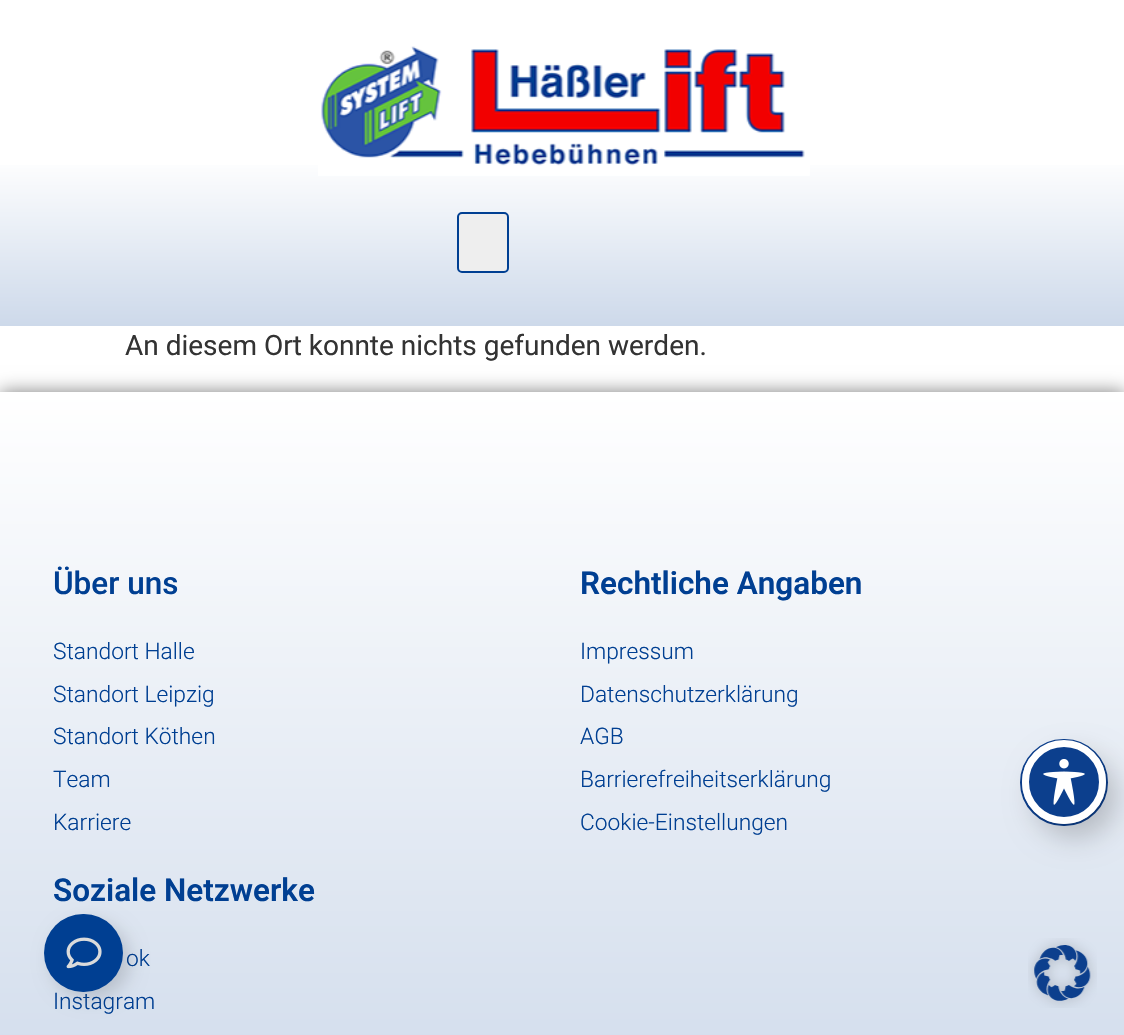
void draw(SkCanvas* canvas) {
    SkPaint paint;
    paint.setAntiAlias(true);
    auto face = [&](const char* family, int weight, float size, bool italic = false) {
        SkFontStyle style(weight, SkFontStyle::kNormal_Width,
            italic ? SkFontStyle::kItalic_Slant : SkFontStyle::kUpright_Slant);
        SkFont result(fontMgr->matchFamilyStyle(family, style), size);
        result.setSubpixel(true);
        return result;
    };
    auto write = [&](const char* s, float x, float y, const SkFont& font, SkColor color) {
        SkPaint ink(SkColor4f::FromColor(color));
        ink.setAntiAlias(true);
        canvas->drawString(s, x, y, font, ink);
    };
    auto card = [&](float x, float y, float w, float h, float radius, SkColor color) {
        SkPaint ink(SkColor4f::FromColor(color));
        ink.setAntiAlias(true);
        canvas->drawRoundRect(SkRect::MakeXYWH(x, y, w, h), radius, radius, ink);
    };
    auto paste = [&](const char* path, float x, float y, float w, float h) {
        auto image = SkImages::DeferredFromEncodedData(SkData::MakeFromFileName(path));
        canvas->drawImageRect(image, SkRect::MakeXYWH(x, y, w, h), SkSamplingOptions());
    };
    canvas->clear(SK_ColorWHITE);
    {
        const SkColor colors[] = {SK_ColorWHITE, SkColorSetRGB(205, 217, 234)};
        const float stops[] = {0.48f, 1};
        const SkPoint ends[] = {{563, 0}, {563, 326}};
        paint.setShader(SkGradientShader::MakeLinear(ends, colors, stops, 2, SkTileMode::kClamp));
        paint.setAlpha(255);
    }
    canvas->drawRect(SkRect::MakeXYWH(0, 165, 1124, 161), paint);
    paste("pic1.png", 318, 46, 492, 130);
    paint.setShader(nullptr);
    paint.setColor(SkColorSetRGB(238, 238, 238));
    canvas->drawRoundRect(SkRect::MakeXYWH(458, 213, 50, 59), 4, 4, paint);
    paint.setStyle(SkPaint::kStroke_Style);
    paint.setStrokeWidth(2);
    paint.setColor(SkColorSetRGB(0, 63, 146));
    canvas->drawRoundRect(SkRect::MakeXYWH(458, 213, 50, 59), 4, 4, paint);
    auto kFont1 = face("Roboto", 400, 28);
    write("An diesem Ort konnte nichts gefunden werden.", 125, 355, kFont1, SkColorSetRGB(51, 51, 51));
    paint.setStyle(SkPaint::kFill_Style);
    paint.setColor(SkColorSetARGB(128, 0, 0, 0));
    paint.setMaskFilter(SkMaskFilter::MakeBlur(kNormal_SkBlurStyle, 9));
    canvas->drawRect(SkRect::MakeXYWH(0, 392, 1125, 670), paint);
    paint.setMaskFilter(nullptr);
    {
        const SkColor colors[] = {SK_ColorWHITE, SkColorSetRGB(205, 217, 234)};
        const float stops[] = {0, 1};
        const SkPoint ends[] = {{563, 392}, {563, 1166}};
        paint.setShader(SkGradientShader::MakeLinear(ends, colors, stops, 2, SkTileMode::kClamp));
        paint.setAlpha(255);
    }
    canvas->drawRect(SkRect::MakeXYWH(0, 392, 1124, 643), paint);
    auto kFont2 = face("Roboto", 500, 31.5f);
    write("Über uns", 53, 594, kFont2, SkColorSetRGB(0, 63, 146));
    auto kFont3 = face("Roboto", 300, 22.75f);
    write("Standort Halle", 53, 659, kFont3, SkColorSetRGB(0, 63, 146));
    write("Standort Leipzig", 53, 702, kFont3, SkColorSetRGB(0, 63, 146));
    write("Standort Köthen", 53, 744, kFont3, SkColorSetRGB(0, 63, 146));
    write("Team", 53, 787, kFont3, SkColorSetRGB(0, 63, 146));
    write("Karriere", 53, 830, kFont3, SkColorSetRGB(0, 63, 146));
    auto kFont4 = face("Roboto", 600, 31.5f);
    write("Rechtliche Angaben", 580, 594, kFont4, SkColorSetRGB(0, 63, 146));
    write("Impressum", 580, 659, kFont3, SkColorSetRGB(0, 63, 146));
    write("Datenschutzerklärung", 580, 702, kFont3, SkColorSetRGB(0, 63, 146));
    write("AGB", 580, 744, kFont3, SkColorSetRGB(0, 63, 146));
    write("Barrierefreiheitserklärung", 580, 787, kFont3, SkColorSetRGB(0, 63, 146));
    write("Cookie-Einstellungen", 580, 830, kFont3, SkColorSetRGB(0, 63, 146));
    write("Soziale Netzwerke", 53, 901, kFont4, SkColorSetRGB(0, 63, 146));
    write("ok", 126, 966, kFont3, SkColorSetRGB(0, 63, 146));
    write("Instagram", 53, 1009, kFont3, SkColorSetRGB(0, 63, 146));
    paint.setStyle(SkPaint::kStroke_Style);
    paint.setShader(nullptr);
    paint.setColor(SkColorSetRGB(12, 63, 141));
    canvas->drawRoundRect(SkRect::MakeXYWH(1021, 740, 86, 85), 42.5f, 42.5f, paint);
    paint.setStyle(SkPaint::kFill_Style);
    paint.setColor(SkColorSetARGB(51, 0, 0, 0));
    paint.setMaskFilter(SkMaskFilter::MakeBlur(kNormal_SkBlurStyle, 14));
    canvas->drawRoundRect(SkRect::MakeXYWH(1033, 754, 84, 84), 42, 42, paint);
    paint.setMaskFilter(nullptr);
    paint.setColor(SkColorSetRGB(12, 63, 141));
    canvas->drawCircle(1064, 782, 38.5f, paint);
    paint.setStyle(SkPaint::kStroke_Style);
    paint.setStrokeWidth(7);
    paint.setColor(SK_ColorWHITE);
    canvas->drawCircle(1064, 782, 38.5f, paint);
    paste("pic2.png", 1043, 759, 42, 46);
    paint.setStyle(SkPaint::kFill_Style);
    paint.setColor(SkColorSetARGB(38, 0, 0, 0));
    paint.setMaskFilter(SkMaskFilter::MakeBlur(kNormal_SkBlurStyle, 9));
    canvas->drawRoundRect(SkRect::MakeXYWH(51, 921, 79, 78), 39, 39, paint);
    paint.setMaskFilter(nullptr);
    card(44, 914, 79, 78, 39, SkColorSetRGB(0, 63, 146));
    paste("pic3.png", 66, 937, 36, 32);
    paste("pic4.png", 1028, 938, 69, 70);
}
